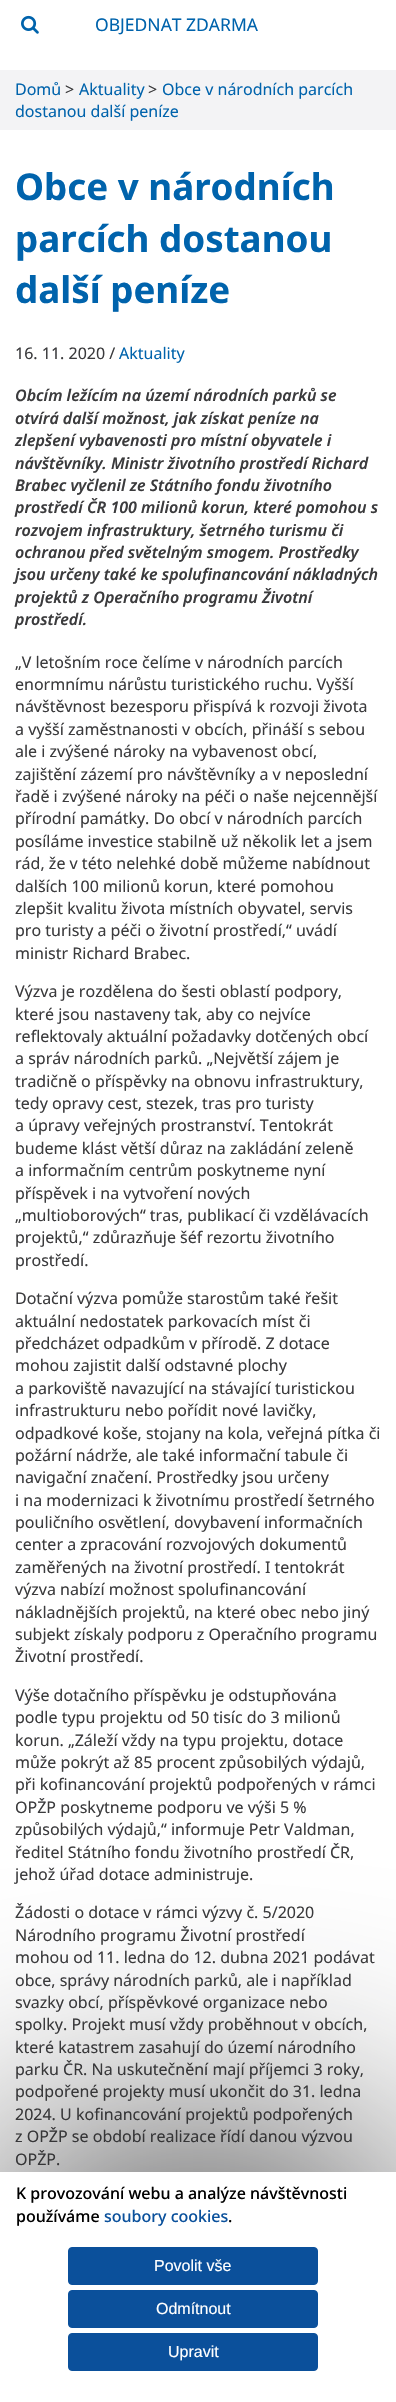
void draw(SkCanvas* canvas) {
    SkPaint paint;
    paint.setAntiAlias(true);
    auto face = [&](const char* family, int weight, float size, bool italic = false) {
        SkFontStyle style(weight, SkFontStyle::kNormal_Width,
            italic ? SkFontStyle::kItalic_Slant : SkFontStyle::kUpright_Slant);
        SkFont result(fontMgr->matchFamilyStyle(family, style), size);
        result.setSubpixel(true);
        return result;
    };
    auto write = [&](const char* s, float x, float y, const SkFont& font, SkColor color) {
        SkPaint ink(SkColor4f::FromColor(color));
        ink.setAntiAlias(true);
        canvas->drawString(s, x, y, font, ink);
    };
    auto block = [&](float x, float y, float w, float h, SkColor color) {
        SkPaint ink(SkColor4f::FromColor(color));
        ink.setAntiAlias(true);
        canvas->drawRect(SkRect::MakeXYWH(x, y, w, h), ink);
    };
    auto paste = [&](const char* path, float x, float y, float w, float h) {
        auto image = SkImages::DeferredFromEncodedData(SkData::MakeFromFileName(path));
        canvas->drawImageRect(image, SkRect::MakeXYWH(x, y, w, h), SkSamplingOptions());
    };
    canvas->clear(SK_ColorWHITE);
    paste("pic1.png", 21, 15, 18, 19);
    auto kFont1 = face("Noto Sans", 400, 17.5f);
    write("OBJEDNAT ZDARMA", 95, 31, kFont1, SkColorSetRGB(0, 99, 172));
    block(0, 70, 396, 60, SkColorSetRGB(243, 243, 245));
    auto kFont2 = face("Noto Sans", 400, 16);
    write("Domů", 15, 95, kFont2, SkColorSetRGB(0, 99, 172));
    write(">", 65, 95, kFont2, SkColorSetRGB(59, 59, 61));
    write("Aktuality", 79, 95, kFont2, SkColorSetRGB(0, 99, 172));
    write(">", 148, 95, kFont2, SkColorSetRGB(59, 59, 61));
    write("Obce v národních parcích", 162, 95, kFont2, SkColorSetRGB(0, 99, 172));
    write("dostanou další peníze", 15, 117, kFont2, SkColorSetRGB(0, 99, 172));
    auto kFont3 = face("Noto Sans", 700, 36.75f);
    write("Obce v národních", 15, 200, kFont3, SkColorSetRGB(0, 99, 172));
    write("parcích dostanou", 15, 252, kFont3, SkColorSetRGB(0, 99, 172));
    write("další peníze", 15, 303, kFont3, SkColorSetRGB(0, 99, 172));
    write("16. 11. 2020 /", 15, 359, kFont2, SkColorSetRGB(59, 59, 61));
    write("Aktuality", 119, 359, kFont2, SkColorSetRGB(0, 99, 172));
    auto kFont4 = face("Noto Sans", 600, 16, true);
    write("Obcím ležícím na území národních parků se", 15, 401, kFont4, SkColorSetRGB(59, 59, 61));
    write("otvírá další možnost, jak získat peníze na", 15, 424, kFont4, SkColorSetRGB(59, 59, 61));
    write("zlepšení vybavenosti pro místní obyvatele i", 15, 446, kFont4, SkColorSetRGB(59, 59, 61));
    write("návštěvníky. Ministr životního prostředí Richard", 15, 469, kFont4, SkColorSetRGB(59, 59, 61));
    write("Brabec vyčlenil ze Státního fondu životního", 15, 491, kFont4, SkColorSetRGB(59, 59, 61));
    write("prostředí ČR 100 milionů korun, které pomohou s", 15, 513, kFont4, SkColorSetRGB(59, 59, 61));
    write("rozvojem infrastruktury, šetrného turismu či", 15, 536, kFont4, SkColorSetRGB(59, 59, 61));
    write("ochranou před světelným smogem. Prostředky", 15, 558, kFont4, SkColorSetRGB(59, 59, 61));
    write("jsou určeny také ke spolufinancování nákladných", 15, 580, kFont4, SkColorSetRGB(59, 59, 61));
    write("projektů z Operačního programu Životní", 15, 603, kFont4, SkColorSetRGB(59, 59, 61));
    write("prostředí.", 15, 625, kFont4, SkColorSetRGB(59, 59, 61));
    write("„V letošním roce čelíme v národních parcích", 15, 668, kFont2, SkColorSetRGB(59, 59, 61));
    write("enormnímu nárůstu turistického ruchu. Vyšší", 15, 690, kFont2, SkColorSetRGB(59, 59, 61));
    write("návštěvnost bezesporu přispívá k rozvoji života", 15, 712, kFont2, SkColorSetRGB(59, 59, 61));
    write("a vyšší zaměstnanosti v obcích, přináší s sebou", 15, 735, kFont2, SkColorSetRGB(59, 59, 61));
    write("ale i zvýšené nároky na vybavenost obcí,", 15, 757, kFont2, SkColorSetRGB(59, 59, 61));
    write("zajištění zázemí pro návštěvníky a v neposlední", 15, 780, kFont2, SkColorSetRGB(59, 59, 61));
    write("řadě i zvýšené nároky na péči o naše nejcennější", 15, 802, kFont2, SkColorSetRGB(59, 59, 61));
    write("přírodní památky. Do obcí v národních parcích", 15, 824, kFont2, SkColorSetRGB(59, 59, 61));
    write("posíláme investice stabilně už několik let a jsem", 15, 847, kFont2, SkColorSetRGB(59, 59, 61));
    write("rád, že v této nelehké době můžeme nabídnout", 15, 869, kFont2, SkColorSetRGB(59, 59, 61));
    write("dalších 100 milionů korun, které pomohou", 15, 892, kFont2, SkColorSetRGB(59, 59, 61));
    write("zlepšit kvalitu života místních obyvatel, servis", 15, 914, kFont2, SkColorSetRGB(59, 59, 61));
    write("pro turisty a péči o životní prostředí,“ uvádí", 15, 936, kFont2, SkColorSetRGB(59, 59, 61));
    write("ministr Richard Brabec.", 15, 959, kFont2, SkColorSetRGB(59, 59, 61));
    write("Výzva je rozdělena do šesti oblastí podpory,", 15, 997, kFont2, SkColorSetRGB(59, 59, 61));
    write("které jsou nastaveny tak, aby co nejvíce", 15, 1020, kFont2, SkColorSetRGB(59, 59, 61));
    write("reflektovaly aktuální požadavky dotčených obcí", 15, 1042, kFont2, SkColorSetRGB(59, 59, 61));
    write("a správ národních parků. „Největší zájem je", 15, 1064, kFont2, SkColorSetRGB(59, 59, 61));
    write("tradičně o příspěvky na obnovu infrastruktury,", 15, 1087, kFont2, SkColorSetRGB(59, 59, 61));
    write("tedy opravy cest, stezek, tras pro turisty", 15, 1109, kFont2, SkColorSetRGB(59, 59, 61));
    write("a úpravy veřejných prostranství. Tentokrát", 15, 1131, kFont2, SkColorSetRGB(59, 59, 61));
    write("budeme klást větší důraz na zakládání zeleně", 15, 1154, kFont2, SkColorSetRGB(59, 59, 61));
    write("a informačním centrům poskytneme nyní", 15, 1176, kFont2, SkColorSetRGB(59, 59, 61));
    write("příspěvek i na vytvoření nových", 15, 1199, kFont2, SkColorSetRGB(59, 59, 61));
    write("„multioborových“ tras, publikací či vzdělávacích", 15, 1221, kFont2, SkColorSetRGB(59, 59, 61));
    write("projektů,“ zdůrazňuje šéf rezortu životního", 15, 1243, kFont2, SkColorSetRGB(59, 59, 61));
    write("prostředí.", 15, 1266, kFont2, SkColorSetRGB(59, 59, 61));
    write("Dotační výzva pomůže starostům také řešit", 15, 1304, kFont2, SkColorSetRGB(59, 59, 61));
    write("aktuální nedostatek parkovacích míst či", 15, 1327, kFont2, SkColorSetRGB(59, 59, 61));
    write("předcházet odpadkům v přírodě. Z dotace", 15, 1349, kFont2, SkColorSetRGB(59, 59, 61));
    write("mohou zajistit další odstavné plochy", 15, 1371, kFont2, SkColorSetRGB(59, 59, 61));
    write("a parkoviště navazující na stávající turistickou", 15, 1394, kFont2, SkColorSetRGB(59, 59, 61));
    write("infrastrukturu nebo pořídit nové lavičky,", 15, 1416, kFont2, SkColorSetRGB(59, 59, 61));
    write("odpadkové koše, stojany na kola, veřejná pítka či", 15, 1439, kFont2, SkColorSetRGB(59, 59, 61));
    write("požární nádrže, ale také informační tabule či", 15, 1461, kFont2, SkColorSetRGB(59, 59, 61));
    write("navigační značení. Prostředky jsou určeny", 15, 1483, kFont2, SkColorSetRGB(59, 59, 61));
    write("i na modernizaci k životnímu prostředí šetrného", 15, 1506, kFont2, SkColorSetRGB(59, 59, 61));
    write("pouličního osvětlení, dovybavení informačních", 15, 1528, kFont2, SkColorSetRGB(59, 59, 61));
    write("center a zpracování rozvojových dokumentů", 15, 1550, kFont2, SkColorSetRGB(59, 59, 61));
    write("zaměřených na životní prostředí. I tentokrát", 15, 1573, kFont2, SkColorSetRGB(59, 59, 61));
    write("výzva nabízí možnost spolufinancování", 15, 1595, kFont2, SkColorSetRGB(59, 59, 61));
    write("nákladnějších projektů, na které obec nebo jiný", 15, 1618, kFont2, SkColorSetRGB(59, 59, 61));
    write("subjekt získaly podporu z Operačního programu", 15, 1640, kFont2, SkColorSetRGB(59, 59, 61));
    write("Životní prostředí.", 15, 1662, kFont2, SkColorSetRGB(59, 59, 61));
    write("Výše dotačního příspěvku je odstupňována", 15, 1701, kFont2, SkColorSetRGB(59, 59, 61));
    write("podle typu projektu od 50 tisíc do 3 milionů", 15, 1723, kFont2, SkColorSetRGB(59, 59, 61));
    write("korun. „Záleží vždy na typu projektu, dotace", 15, 1746, kFont2, SkColorSetRGB(59, 59, 61));
    write("může pokrýt až 85 procent způsobilých výdajů,", 15, 1768, kFont2, SkColorSetRGB(59, 59, 61));
    write("při kofinancování projektů podpořených v rámci", 15, 1790, kFont2, SkColorSetRGB(59, 59, 61));
    write("OPŽP poskytneme podporu ve výši 5 %", 15, 1813, kFont2, SkColorSetRGB(59, 59, 61));
    write("způsobilých výdajů,“ informuje Petr Valdman,", 15, 1835, kFont2, SkColorSetRGB(59, 59, 61));
    write("ředitel Státního fondu životního prostředí ČR,", 15, 1858, kFont2, SkColorSetRGB(59, 59, 61));
    write("jehož úřad dotace administruje.", 15, 1880, kFont2, SkColorSetRGB(59, 59, 61));
    write("Žádosti o dotace v rámci výzvy č. 5/2020", 15, 1918, kFont2, SkColorSetRGB(59, 59, 61));
    write("Národního programu Životní prostředí", 15, 1941, kFont2, SkColorSetRGB(59, 59, 61));
    write("mohou od 11. ledna do 12. dubna 2021 podávat", 15, 1963, kFont2, SkColorSetRGB(59, 59, 61));
    write("obce, správy národních parků, ale i například", 15, 1986, kFont2, SkColorSetRGB(59, 59, 61));
    write("svazky obcí, příspěvkové organizace nebo", 15, 2008, kFont2, SkColorSetRGB(59, 59, 61));
    write("spolky. Projekt musí vždy proběhnout v obcích,", 15, 2030, kFont2, SkColorSetRGB(59, 59, 61));
    write("které katastrem zasahují do území národního", 15, 2053, kFont2, SkColorSetRGB(59, 59, 61));
    write("parku ČR. Na uskutečnění mají příjemci 3 roky,", 15, 2075, kFont2, SkColorSetRGB(59, 59, 61));
    write("podpořené projekty musí ukončit do 31. ledna", 15, 2097, kFont2, SkColorSetRGB(59, 59, 61));
    write("2024. U kofinancování projektů podpořených", 15, 2120, kFont2, SkColorSetRGB(59, 59, 61));
    write("z OPŽP se období realizace řídí danou výzvou", 15, 2142, kFont2, SkColorSetRGB(59, 59, 61));
    write("OPŽP.", 15, 2165, kFont2, SkColorSetRGB(59, 59, 61));
    paint.setColor(SkColorSetRGB(41, 41, 42));
    paint.setMaskFilter(SkMaskFilter::MakeBlur(kNormal_SkBlurStyle, 500));
    canvas->drawRect(SkRect::MakeXYWH(0, 2162, 396, 230), paint);
    paint.setMaskFilter(nullptr);
    block(0, 2172, 396, 230, SK_ColorWHITE);
    auto kFont5 = face("Noto Sans", 500, 16);
    write("K provozování webu a analýze návštěvnosti", 16, 2199, kFont5, SK_ColorBLACK);
    write("používáme", 16, 2222, kFont5, SK_ColorBLACK);
    write("soubory cookies", 104, 2222, kFont5, SkColorSetRGB(11, 81, 156));
    write(".", 228, 2222, kFont5, SK_ColorBLACK);
    paint.setColor(SkColorSetRGB(11, 80, 155));
    canvas->drawRoundRect(SkRect::MakeXYWH(68.5f, 2247.5f, 249, 37), 3.5f, 3.5f, paint);
    paint.setStyle(SkPaint::kStroke_Style);
    paint.setStrokeWidth(1);
    canvas->drawRoundRect(SkRect::MakeXYWH(68.5f, 2247.5f, 249, 37), 3.5f, 3.5f, paint);
    auto kFont6 = face("Liberation Sans", 400, 16);
    write("Povolit vše", 154, 2271, kFont6, SK_ColorWHITE);
    paint.setStyle(SkPaint::kFill_Style);
    canvas->drawRoundRect(SkRect::MakeXYWH(68.5f, 2290.5f, 249, 37), 3.5f, 3.5f, paint);
    paint.setStyle(SkPaint::kStroke_Style);
    canvas->drawRoundRect(SkRect::MakeXYWH(68.5f, 2290.5f, 249, 37), 3.5f, 3.5f, paint);
    write("Odmítnout", 156, 2314, kFont6, SK_ColorWHITE);
    paint.setStyle(SkPaint::kFill_Style);
    canvas->drawRoundRect(SkRect::MakeXYWH(68.5f, 2333.5f, 249, 37), 3.5f, 3.5f, paint);
    paint.setStyle(SkPaint::kStroke_Style);
    canvas->drawRoundRect(SkRect::MakeXYWH(68.5f, 2333.5f, 249, 37), 3.5f, 3.5f, paint);
    write("Upravit", 168, 2357, kFont6, SK_ColorWHITE);
}
